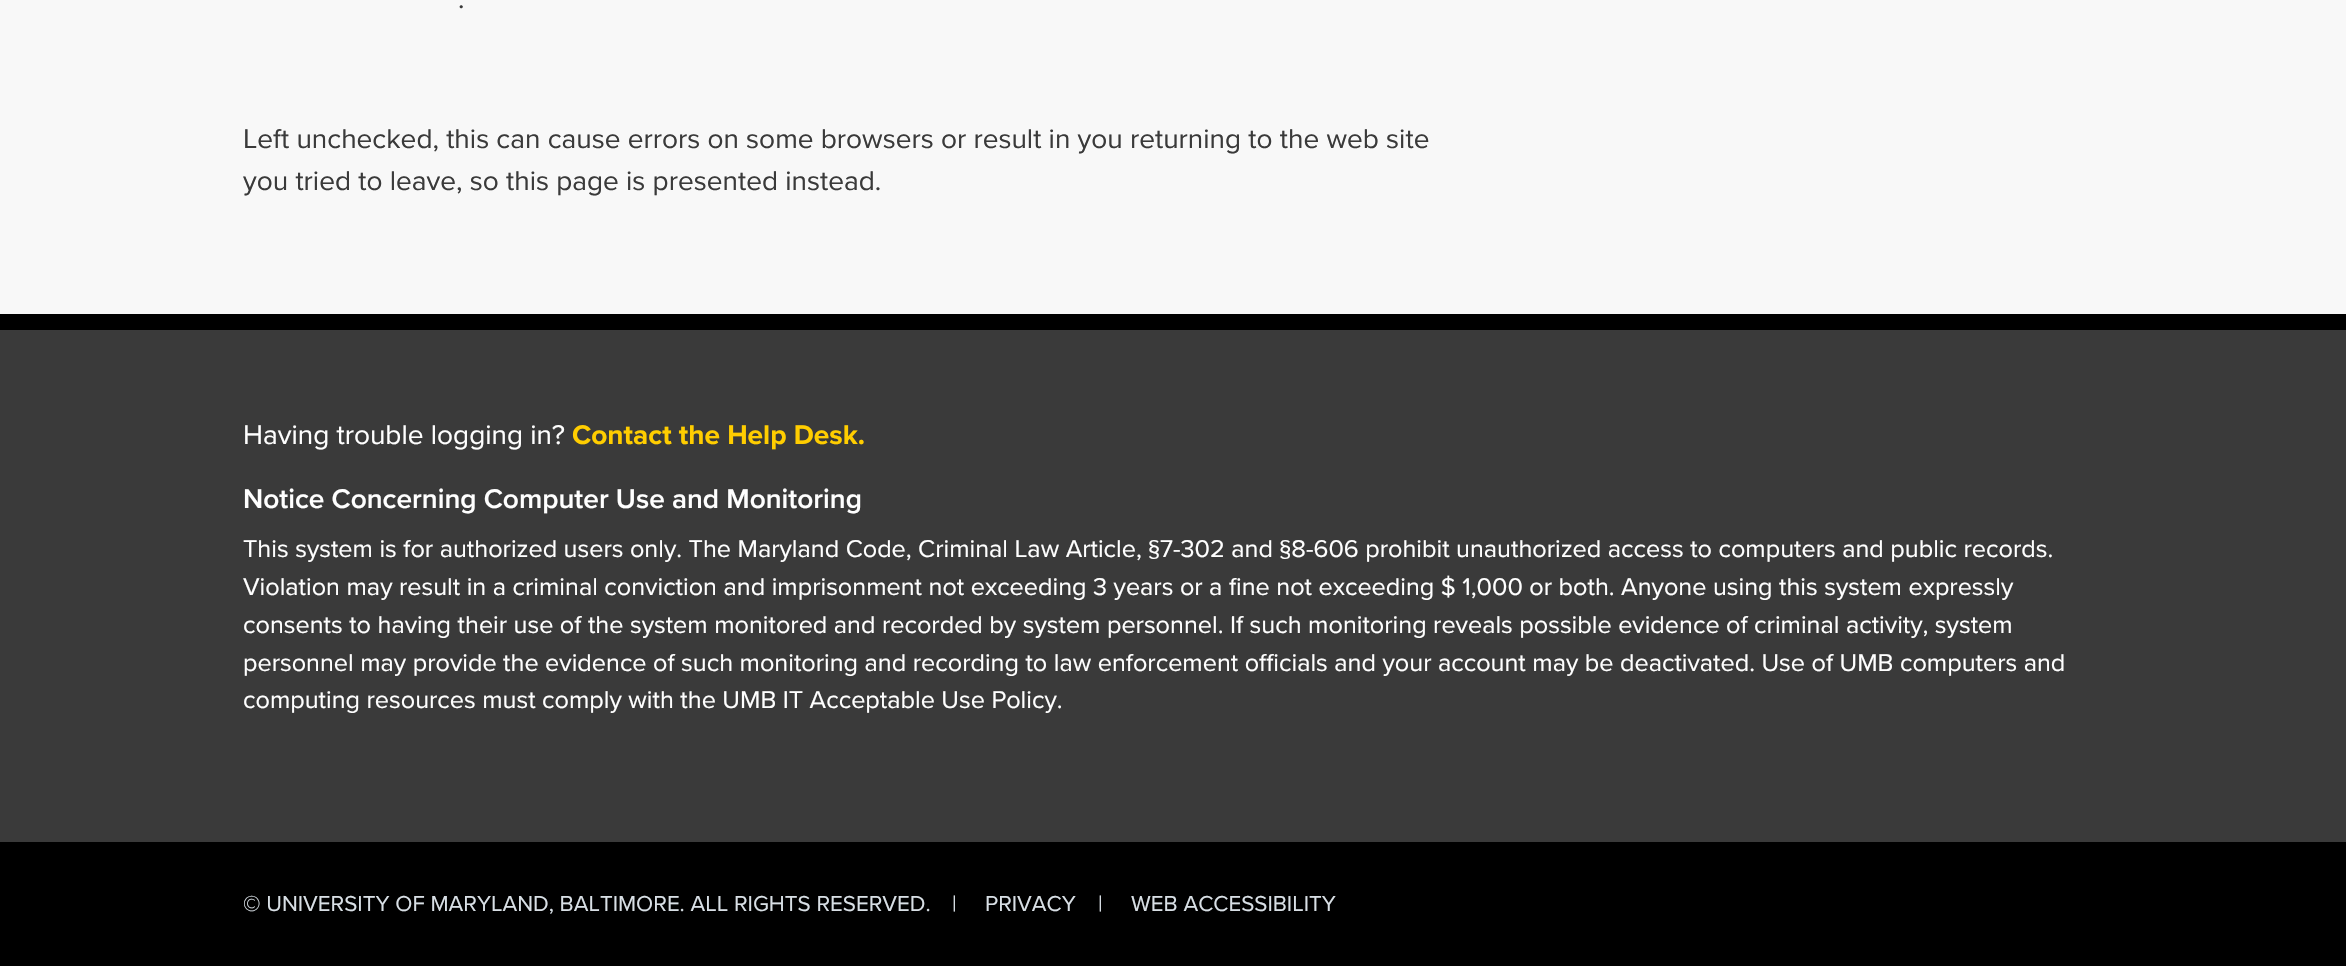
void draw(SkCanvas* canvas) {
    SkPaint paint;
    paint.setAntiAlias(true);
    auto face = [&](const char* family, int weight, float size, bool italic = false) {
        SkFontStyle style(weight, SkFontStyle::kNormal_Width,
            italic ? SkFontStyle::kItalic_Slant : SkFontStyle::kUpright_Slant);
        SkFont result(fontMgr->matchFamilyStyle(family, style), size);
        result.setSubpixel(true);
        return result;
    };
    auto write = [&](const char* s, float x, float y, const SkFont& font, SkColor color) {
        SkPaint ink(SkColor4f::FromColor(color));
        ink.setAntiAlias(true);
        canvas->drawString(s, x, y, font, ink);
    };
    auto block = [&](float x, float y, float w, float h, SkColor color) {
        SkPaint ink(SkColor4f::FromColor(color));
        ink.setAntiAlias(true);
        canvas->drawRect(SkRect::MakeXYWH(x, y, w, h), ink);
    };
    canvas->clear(SkColorSetRGB(248, 248, 248));
    auto kFont1 = face("Proxima Nova", 400, 28);
    write(".", 458, 8, kFont1, SkColorSetRGB(58, 58, 58));
    write("Left unchecked, this can cause errors on some browsers or result in you returning to the web site", 243, 148, kFont1, SkColorSetRGB(58, 58, 58));
    write("you tried to leave, so this page is presented instead.", 243, 190, kFont1, SkColorSetRGB(58, 58, 58));
    block(0, 330, 2346, 512, SkColorSetRGB(58, 58, 58));
    block(0, 314, 2346, 16, SK_ColorBLACK);
    write("Having trouble logging in?", 243, 444, kFont1, SK_ColorWHITE);
    auto kFont2 = face("Proxima Nova", 700, 28);
    write("Contact the Help Desk.", 572, 444, kFont2, SkColorSetRGB(255, 205, 0));
    auto kFont3 = face("Proxima Nova", 600, 28);
    write("Notice Concerning Computer Use and Monitoring", 243, 508, kFont3, SK_ColorWHITE);
    auto kFont4 = face("Proxima Nova", 400, 25.2f);
    write("This system is for authorized users only. The Maryland Code, Criminal Law Article, §7-302 and §8-606 prohibit unauthorized access to computers and public records.", 243, 557, kFont4, SK_ColorWHITE);
    write("Violation may result in a criminal conviction and imprisonment not exceeding 3 years or a fine not exceeding $ 1,000 or both. Anyone using this system expressly", 243, 595, kFont4, SK_ColorWHITE);
    write("consents to having their use of the system monitored and recorded by system personnel. If such monitoring reveals possible evidence of criminal activity, system", 243, 633, kFont4, SK_ColorWHITE);
    write("personnel may provide the evidence of such monitoring and recording to law enforcement officials and your account may be deactivated. Use of UMB computers and", 243, 671, kFont4, SK_ColorWHITE);
    write("computing resources must comply with the UMB IT Acceptable Use Policy.", 243, 708, kFont4, SK_ColorWHITE);
    block(0, 842, 2346, 124, SK_ColorBLACK);
    auto kFont5 = face("Proxima Nova", 400, 22.4f);
    write("© UNIVERSITY OF MARYLAND, BALTIMORE. ALL RIGHTS RESERVED.", 243, 911, kFont5, SkColorSetRGB(216, 223, 229));
    write("|", 952, 911, kFont5, SkColorSetRGB(216, 223, 229));
    write("PRIVACY", 985, 911, kFont5, SkColorSetRGB(216, 223, 229));
    write("|", 1098, 911, kFont5, SkColorSetRGB(216, 223, 229));
    write("WEB ACCESSIBILITY", 1131, 911, kFont5, SkColorSetRGB(216, 223, 229));
}
